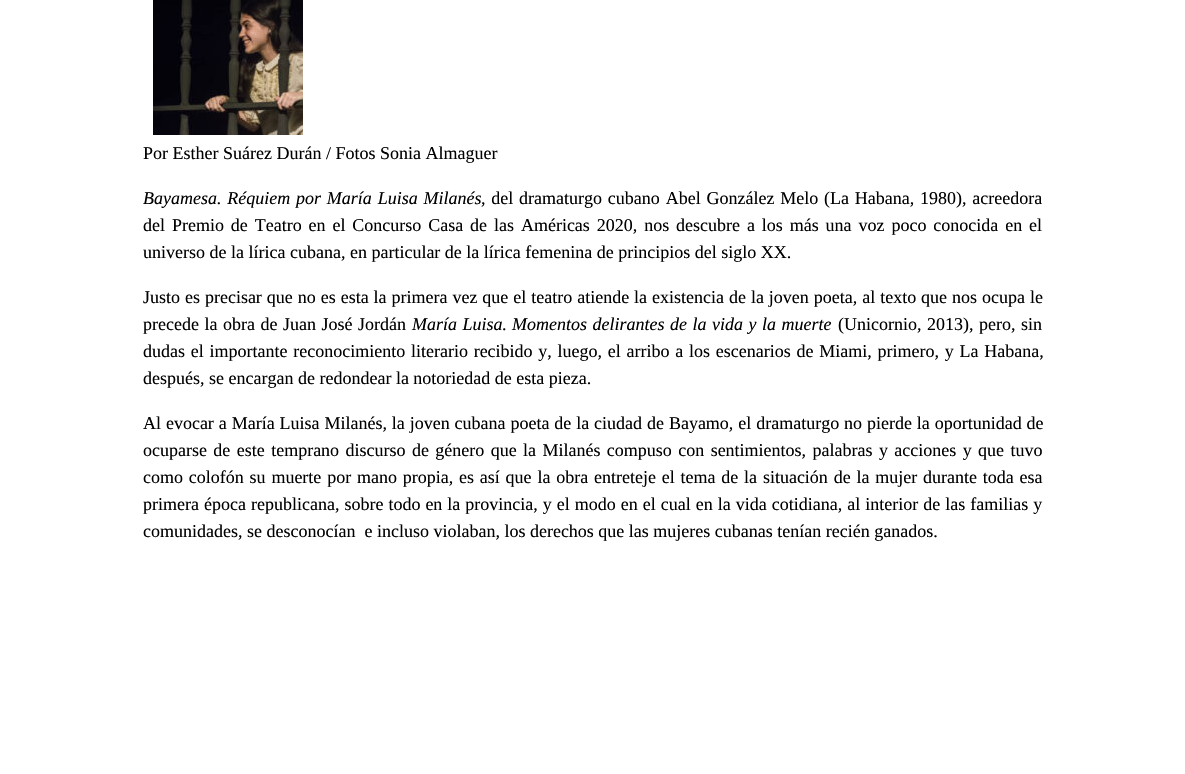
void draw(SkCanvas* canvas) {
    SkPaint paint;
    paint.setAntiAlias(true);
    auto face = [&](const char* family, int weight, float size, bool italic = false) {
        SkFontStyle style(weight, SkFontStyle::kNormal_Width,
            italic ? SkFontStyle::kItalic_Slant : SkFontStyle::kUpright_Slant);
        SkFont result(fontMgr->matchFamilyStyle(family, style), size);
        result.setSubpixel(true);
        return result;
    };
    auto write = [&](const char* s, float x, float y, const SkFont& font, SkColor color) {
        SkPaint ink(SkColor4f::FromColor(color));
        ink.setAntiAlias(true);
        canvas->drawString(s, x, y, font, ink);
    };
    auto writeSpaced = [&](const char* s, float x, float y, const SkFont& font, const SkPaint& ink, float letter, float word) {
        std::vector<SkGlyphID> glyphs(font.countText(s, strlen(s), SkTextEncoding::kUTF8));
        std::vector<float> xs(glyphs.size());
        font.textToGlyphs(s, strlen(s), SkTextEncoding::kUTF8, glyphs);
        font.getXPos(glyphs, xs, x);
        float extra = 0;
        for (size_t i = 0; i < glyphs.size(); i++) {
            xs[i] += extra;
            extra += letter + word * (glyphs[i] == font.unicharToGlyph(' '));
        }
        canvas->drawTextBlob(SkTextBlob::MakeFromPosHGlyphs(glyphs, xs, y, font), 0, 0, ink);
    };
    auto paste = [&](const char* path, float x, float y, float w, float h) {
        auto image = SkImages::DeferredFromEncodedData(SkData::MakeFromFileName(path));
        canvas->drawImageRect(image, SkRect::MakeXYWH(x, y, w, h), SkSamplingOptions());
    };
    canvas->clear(SK_ColorWHITE);
    paste("pic1.png", 153, 0, 150, 135);
    auto kFont1 = face("Liberation Serif", 400, 18);
    write("Por Esther Suárez Durán / Fotos Sonia Almaguer", 143, 159, kFont1, SK_ColorBLACK);
    auto kFont2 = face("Liberation Serif", 400, 18, true);
    paint.setColor(SK_ColorBLACK);
    writeSpaced("Bayamesa. Réquiem por María Luisa Milanés", 143, 204, kFont2, paint, 0, 1.3f);
    writeSpaced(", del dramaturgo cubano Abel González Melo (La Habana, 1980), acreedora", 481, 204, kFont1, paint, 0, 1.3f);
    writeSpaced("del Premio de Teatro en el Concurso Casa de las Américas 2020, nos descubre a los más una voz poco conocida en el", 143, 231, kFont1, paint, 0, 2.4f);
    write("universo de la lírica cubana, en particular de la lírica femenina de principios del siglo XX.", 143, 258, kFont1, SK_ColorBLACK);
    writeSpaced("Justo es precisar que no es esta la primera vez que el teatro atiende la existencia de la joven poeta, al texto que nos ocupa le", 143, 303, kFont1, paint, 0, 0.45f);
    writeSpaced("precede la obra de Juan José Jordán", 143, 330, kFont1, paint, 0, 1);
    writeSpaced("María Luisa", 412, 330, kFont2, paint, 0, 1);
    write(".", 502, 330, kFont1, SK_ColorBLACK);
    writeSpaced("Momentos delirantes de la vida y la muerte", 512, 330, kFont2, paint, 0, 1);
    writeSpaced("(Unicornio, 2013), pero, sin", 838, 330, kFont1, paint, 0, 1);
    writeSpaced("dudas el importante reconocimiento literario recibido y, luego, el arribo a los escenarios de Miami, primero, y La Habana,", 143, 357, kFont1, paint, 0, 1.25f);
    write("después, se encargan de redondear la notoriedad de esta pieza.", 143, 384, kFont1, SK_ColorBLACK);
    writeSpaced("Al evocar a María Luisa Milanés, la joven cubana poeta de la ciudad de Bayamo, el dramaturgo no pierde la oportunidad de", 143, 429, kFont1, paint, 0, 0.4f);
    writeSpaced("ocuparse de este temprano discurso de género que la Milanés compuso con sentimientos, palabras y acciones y que tuvo", 143, 456, kFont1, paint, 0, 1.9f);
    writeSpaced("como colofón su muerte por mano propia, es así que la obra entreteje el tema de la situación de la mujer durante toda esa", 143, 483, kFont1, paint, 0, 1.3f);
    writeSpaced("primera época republicana, sobre todo en la provincia, y el modo en el cual en la vida cotidiana, al interior de las familias y", 143, 510, kFont1, paint, 0, 0.5f);
    write("comunidades, se desconocían  e incluso violaban, los derechos que las mujeres cubanas tenían recién ganados.", 143, 537, kFont1, SK_ColorBLACK);
}
